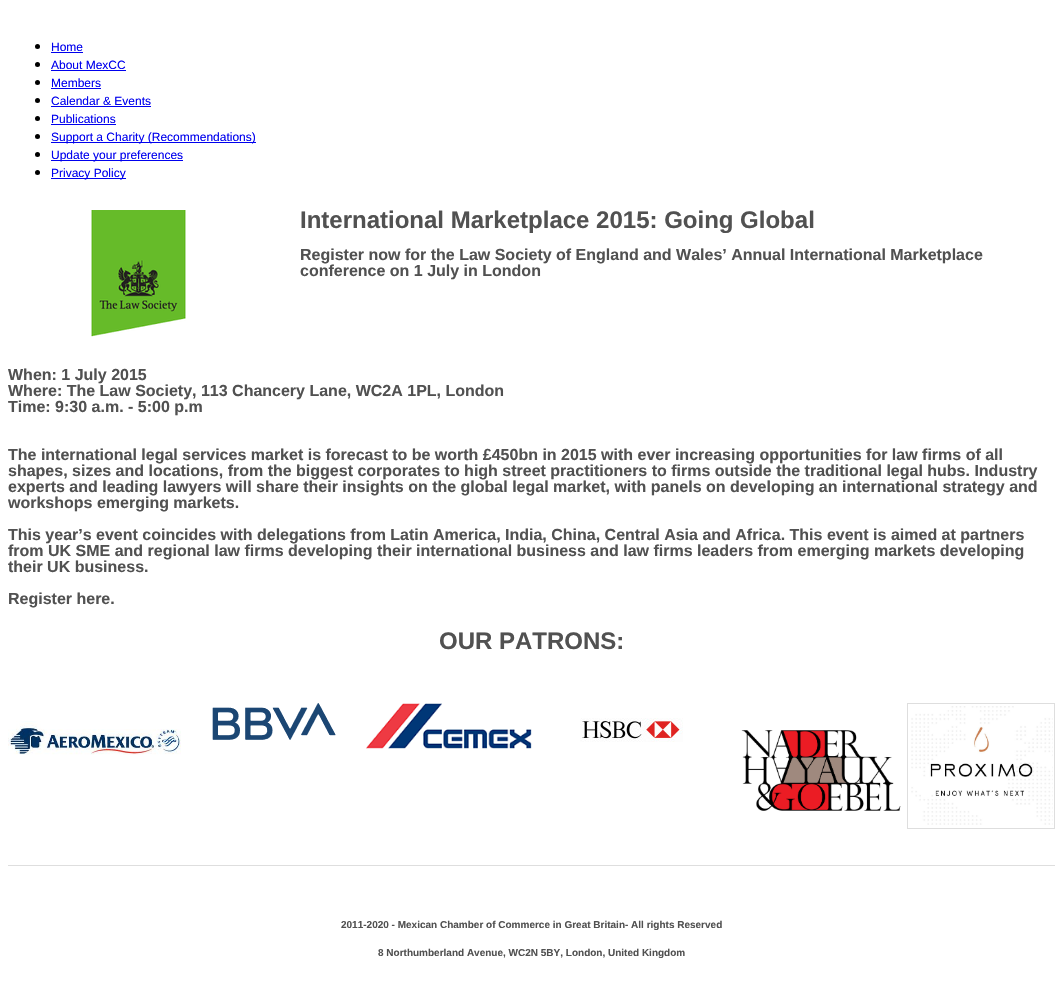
void draw(SkCanvas* canvas) {
    SkPaint paint;
    paint.setAntiAlias(true);
    auto face = [&](const char* family, int weight, float size, bool italic = false) {
        SkFontStyle style(weight, SkFontStyle::kNormal_Width,
            italic ? SkFontStyle::kItalic_Slant : SkFontStyle::kUpright_Slant);
        SkFont result(fontMgr->matchFamilyStyle(family, style), size);
        result.setSubpixel(true);
        return result;
    };
    auto write = [&](const char* s, float x, float y, const SkFont& font, SkColor color) {
        SkPaint ink(SkColor4f::FromColor(color));
        ink.setAntiAlias(true);
        canvas->drawString(s, x, y, font, ink);
    };
    auto block = [&](float x, float y, float w, float h, SkColor color) {
        SkPaint ink(SkColor4f::FromColor(color));
        ink.setAntiAlias(true);
        canvas->drawRect(SkRect::MakeXYWH(x, y, w, h), ink);
    };
    auto paste = [&](const char* path, float x, float y, float w, float h) {
        auto image = SkImages::DeferredFromEncodedData(SkData::MakeFromFileName(path));
        canvas->drawImageRect(image, SkRect::MakeXYWH(x, y, w, h), SkSamplingOptions());
    };
    canvas->clear(SK_ColorWHITE);
    paint.setColor(SK_ColorBLACK);
    canvas->drawCircle(37.5f, 46.5f, 2.5f, paint);
    auto kFont1 = face("Liberation Sans", 400, 12);
    write("Home", 51, 51, kFont1, SkColorSetRGB(0, 0, 238));
    block(51, 52, 32, 1, SkColorSetRGB(0, 0, 238));
    canvas->drawCircle(37.5f, 64.5f, 2.5f, paint);
    write("About MexCC", 51, 69, kFont1, SkColorSetRGB(0, 0, 238));
    block(51, 70, 75, 1, SkColorSetRGB(0, 0, 238));
    canvas->drawCircle(37.5f, 82.5f, 2.5f, paint);
    write("Members", 51, 87, kFont1, SkColorSetRGB(0, 0, 238));
    block(51, 88, 50, 1, SkColorSetRGB(0, 0, 238));
    canvas->drawCircle(37.5f, 100.5f, 2.5f, paint);
    write("Calendar & Events", 51, 105, kFont1, SkColorSetRGB(0, 0, 238));
    block(51, 106, 100, 1, SkColorSetRGB(0, 0, 238));
    canvas->drawCircle(37.5f, 118.5f, 2.5f, paint);
    write("Publications", 51, 123, kFont1, SkColorSetRGB(0, 0, 238));
    block(51, 124, 65, 1, SkColorSetRGB(0, 0, 238));
    canvas->drawCircle(37.5f, 136.5f, 2.5f, paint);
    block(51, 142, 205, 1, SkColorSetRGB(0, 0, 238));
    write("Support a Charity (Recommendations)", 51, 141, kFont1, SkColorSetRGB(0, 0, 238));
    canvas->drawCircle(37.5f, 154.5f, 2.5f, paint);
    block(51, 160, 132, 1, SkColorSetRGB(0, 0, 238));
    write("Update your preferences", 51, 159, kFont1, SkColorSetRGB(0, 0, 238));
    canvas->drawCircle(37.5f, 172.5f, 2.5f, paint);
    block(51, 178, 75, 1, SkColorSetRGB(0, 0, 238));
    write("Privacy Policy", 51, 177, kFont1, SkColorSetRGB(0, 0, 238));
    paste("pic1.png", 91, 210, 95, 127);
    auto kFont2 = face("Liberation Sans", 700, 24);
    write("International Marketplace 2015: Going Global", 300, 228, kFont2, SkColorSetRGB(81, 81, 81));
    auto kFont3 = face("Liberation Sans", 700, 16);
    write("Register now for the Law Society of England and Wales’ Annual International Marketplace", 300, 260, kFont3, SkColorSetRGB(81, 81, 81));
    write("conference on 1 July in London", 300, 276, kFont3, SkColorSetRGB(81, 81, 81));
    write("When: 1 July 2015", 8, 380, kFont3, SkColorSetRGB(81, 81, 81));
    write("Where: The Law Society, 113 Chancery Lane, WC2A 1PL, London", 8, 396, kFont3, SkColorSetRGB(81, 81, 81));
    write("Time: 9:30 a.m. - 5:00 p.m", 8, 412, kFont3, SkColorSetRGB(81, 81, 81));
    write("The international legal services market is forecast to be worth £450bn in 2015 with ever increasing opportunities for law firms of all", 8, 460, kFont3, SkColorSetRGB(81, 81, 81));
    write("shapes, sizes and locations, from the biggest corporates to high street practitioners to firms outside the traditional legal hubs. Industry", 8, 476, kFont3, SkColorSetRGB(81, 81, 81));
    write("experts and leading lawyers will share their insights on the global legal market, with panels on developing an international strategy and", 8, 492, kFont3, SkColorSetRGB(81, 81, 81));
    write("workshops emerging markets.", 8, 508, kFont3, SkColorSetRGB(81, 81, 81));
    write("This year’s event coincides with delegations from Latin America, India, China, Central Asia and Africa. This event is aimed at partners", 8, 540, kFont3, SkColorSetRGB(81, 81, 81));
    write("from UK SME and regional law firms developing their international business and law firms leaders from emerging markets developing", 8, 556, kFont3, SkColorSetRGB(81, 81, 81));
    write("their UK business.", 8, 572, kFont3, SkColorSetRGB(81, 81, 81));
    write("Register here.", 8, 604, kFont3, SkColorSetRGB(81, 81, 81));
    write("OUR PATRONS:", 439, 649, kFont2, SkColorSetRGB(81, 81, 81));
    paste("pic2.png", 8, 721, 173, 34);
    paste("pic3.png", 212, 703, 124, 37);
    paste("pic4.png", 366, 703, 166, 46);
    paste("pic5.png", 580, 718, 103, 24);
    paste("pic6.png", 741, 730, 160, 81);
    paint.setStyle(SkPaint::kStroke_Style);
    paint.setStrokeWidth(1);
    paint.setColor(SkColorSetRGB(222, 222, 222));
    canvas->drawRect(SkRect::MakeXYWH(907.5f, 703.5f, 147, 125), paint);
    paste("pic7.png", 911, 706, 142, 119);
    block(8, 865, 1047, 1, SkColorSetRGB(222, 222, 222));
    auto kFont4 = face("Liberation Sans", 700, 10);
    write("2011-2020 - Mexican Chamber of Commerce in Great Britain- All rights Reserved", 341, 928, kFont4, SkColorSetRGB(81, 81, 81));
    write("8 Northumberland Avenue, WC2N 5BY, London, United Kingdom", 378, 956, kFont4, SkColorSetRGB(81, 81, 81));
}
